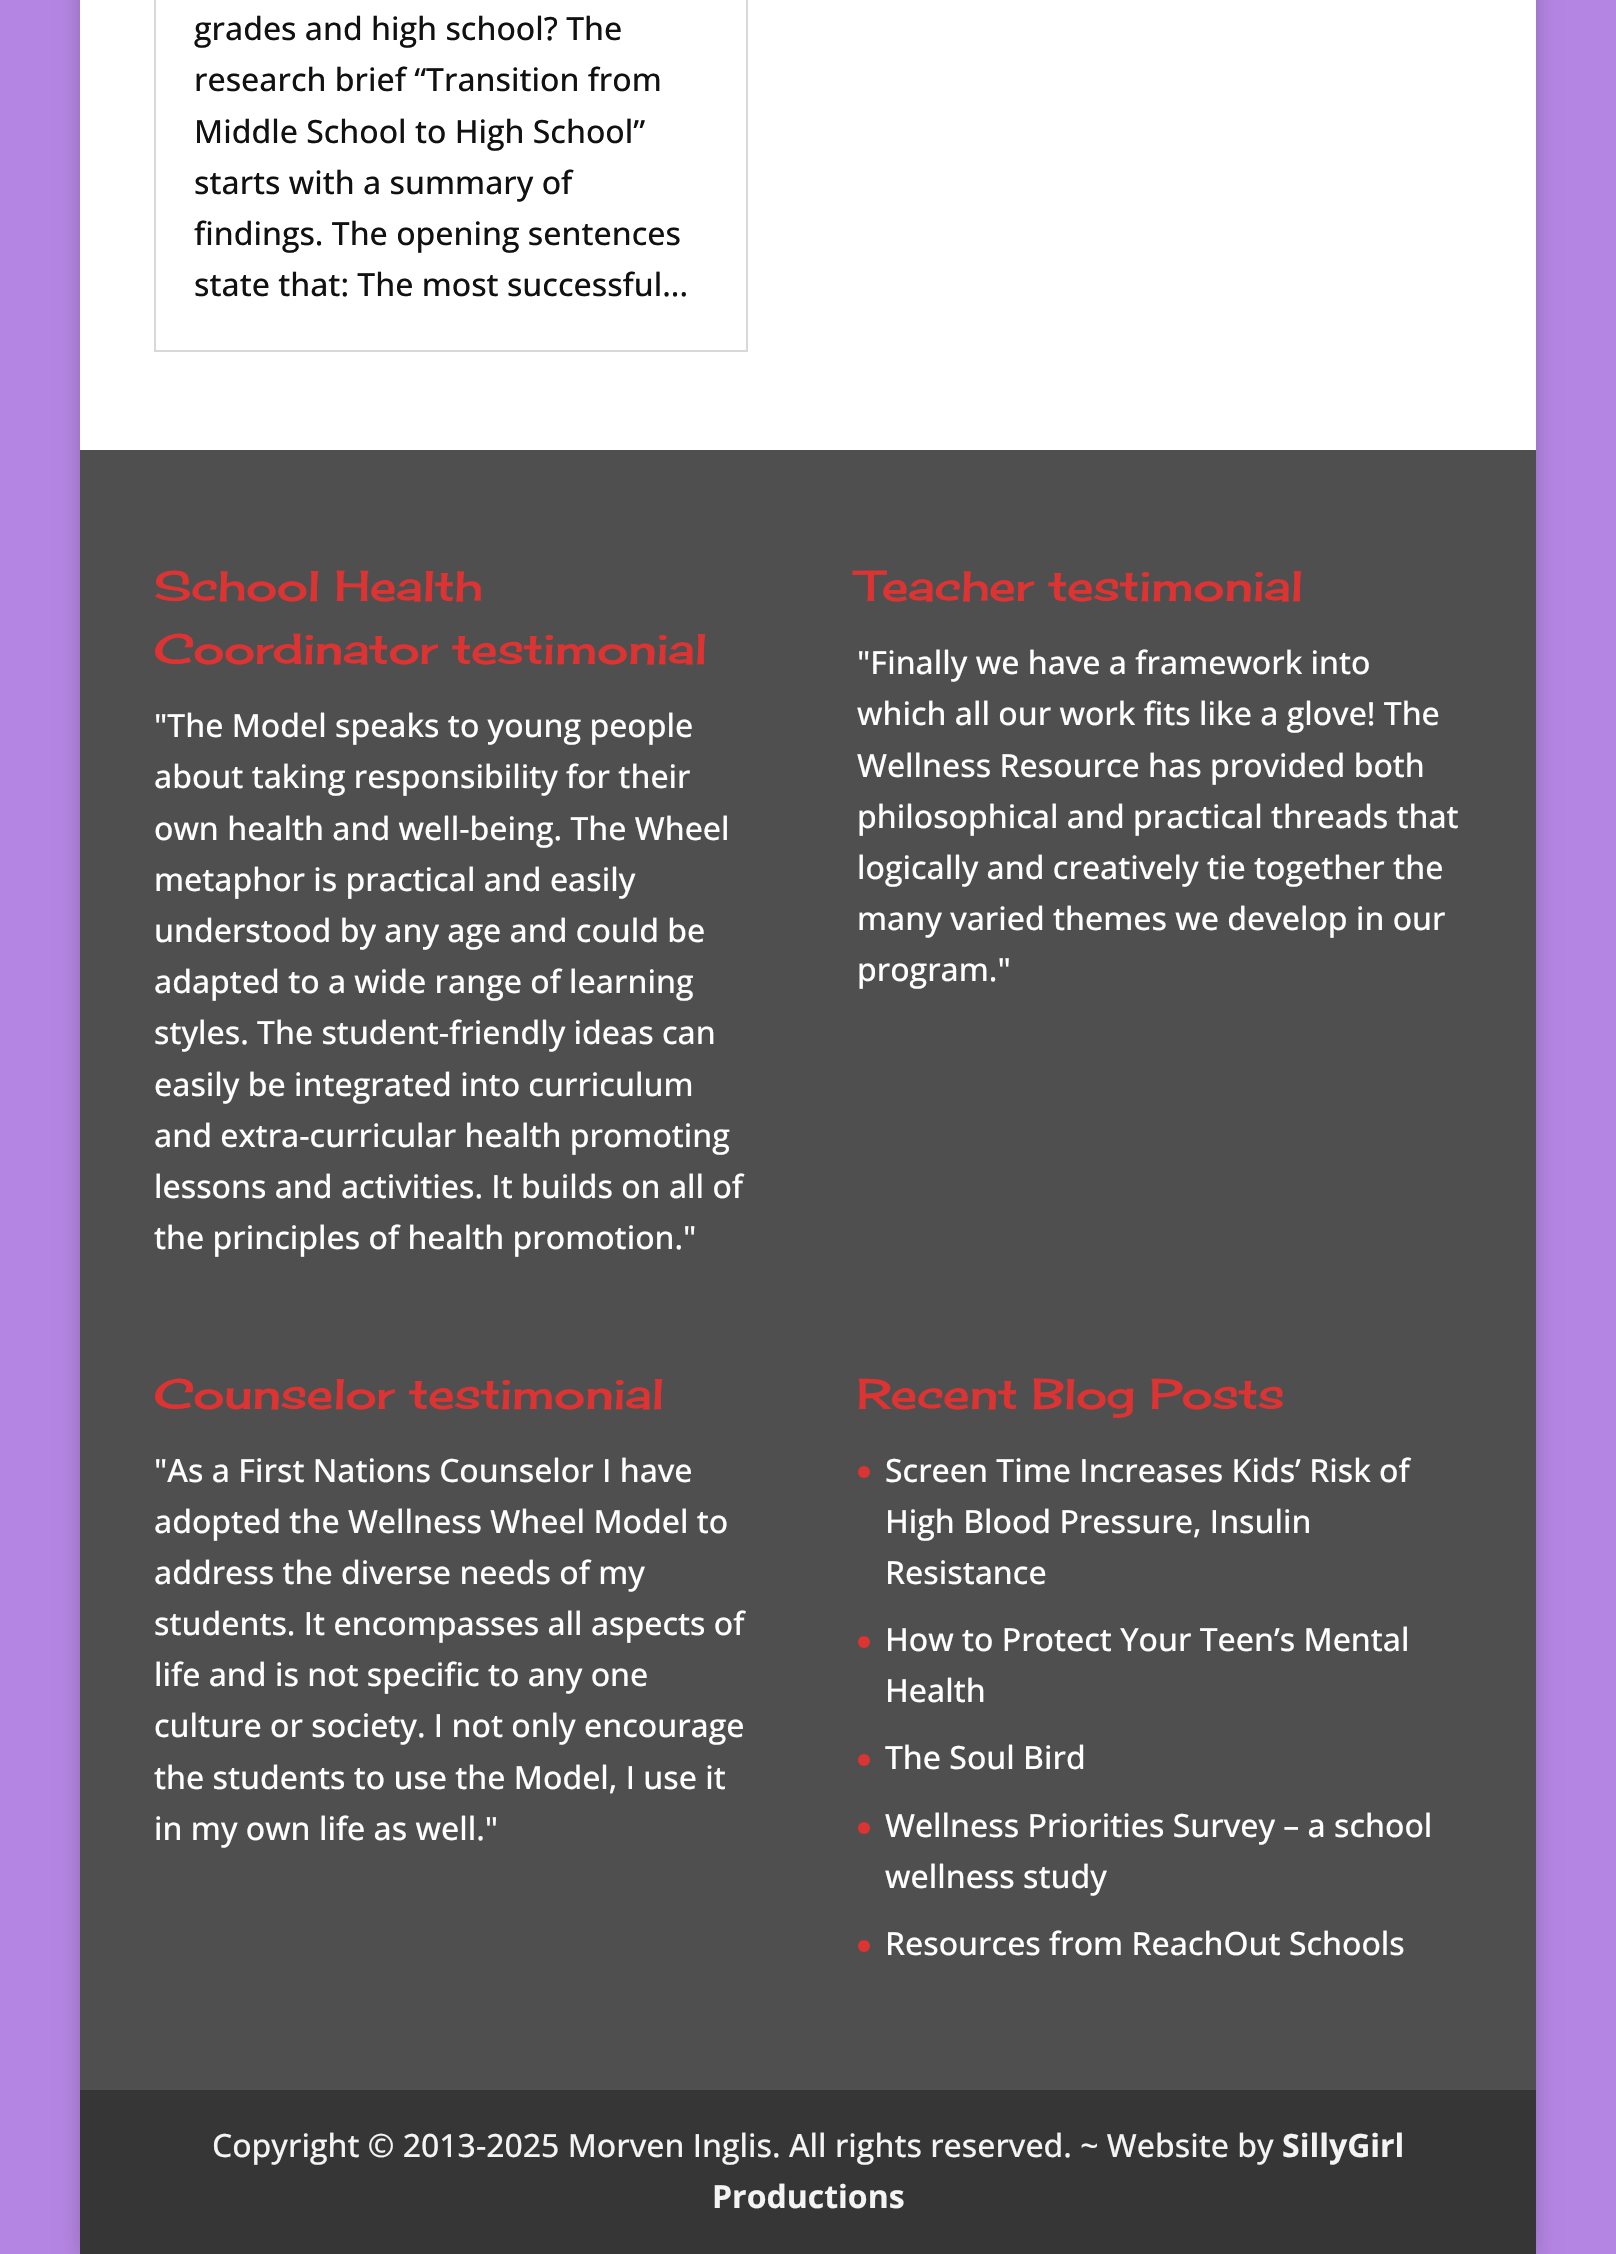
void draw(SkCanvas* canvas) {
    SkPaint paint;
    paint.setAntiAlias(true);
    auto face = [&](const char* family, int weight, float size, bool italic = false) {
        SkFontStyle style(weight, SkFontStyle::kNormal_Width,
            italic ? SkFontStyle::kItalic_Slant : SkFontStyle::kUpright_Slant);
        SkFont result(fontMgr->matchFamilyStyle(family, style), size);
        result.setSubpixel(true);
        return result;
    };
    auto write = [&](const char* s, float x, float y, const SkFont& font, SkColor color) {
        SkPaint ink(SkColor4f::FromColor(color));
        ink.setAntiAlias(true);
        canvas->drawString(s, x, y, font, ink);
    };
    auto block = [&](float x, float y, float w, float h, SkColor color) {
        SkPaint ink(SkColor4f::FromColor(color));
        ink.setAntiAlias(true);
        canvas->drawRect(SkRect::MakeXYWH(x, y, w, h), ink);
    };
    canvas->clear(SkColorSetRGB(180, 133, 226));
    paint.setColor(SkColorSetARGB(51, 0, 0, 0));
    paint.setMaskFilter(SkMaskFilter::MakeBlur(kNormal_SkBlurStyle, 10));
    canvas->drawRect(SkRect::MakeXYWH(80, -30, 1456, 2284), paint);
    paint.setMaskFilter(nullptr);
    block(80, 0, 1456, 450, SK_ColorWHITE);
    paint.setStyle(SkPaint::kStroke_Style);
    paint.setStrokeWidth(2);
    paint.setColor(SkColorSetRGB(216, 216, 216));
    canvas->drawRect(SkRect::MakeXYWH(155, -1, 592, 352), paint);
    auto kFont1 = face("Open Sans", 500, 32);
    write("grades and high school? The", 194, 40, kFont1, SkColorSetRGB(17, 17, 17));
    write("research brief “Transition from", 194, 91, kFont1, SkColorSetRGB(17, 17, 17));
    write("Middle School to High School”", 194, 143, kFont1, SkColorSetRGB(17, 17, 17));
    write("starts with a summary of", 194, 194, kFont1, SkColorSetRGB(17, 17, 17));
    write("findings. The opening sentences", 194, 245, kFont1, SkColorSetRGB(17, 17, 17));
    write("state that: The most successful...", 194, 296, kFont1, SkColorSetRGB(17, 17, 17));
    block(80, 450, 1456, 1640, SkColorSetRGB(79, 79, 79));
    auto kFont2 = face("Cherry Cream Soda", 400, 42);
    write("School Health", 154, 601, kFont2, SkColorSetRGB(221, 51, 51));
    write("Coordinator testimonial", 154, 664, kFont2, SkColorSetRGB(221, 51, 51));
    write("\"The Model speaks to young people", 154, 737, kFont1, SK_ColorWHITE);
    write("about taking responsibility for their", 154, 788, kFont1, SK_ColorWHITE);
    write("own health and well-being. The Wheel", 154, 840, kFont1, SK_ColorWHITE);
    write("metaphor is practical and easily", 154, 891, kFont1, SK_ColorWHITE);
    write("understood by any age and could be", 154, 942, kFont1, SK_ColorWHITE);
    write("adapted to a wide range of learning", 154, 993, kFont1, SK_ColorWHITE);
    write("styles. The student-friendly ideas can", 154, 1044, kFont1, SK_ColorWHITE);
    write("easily be integrated into curriculum", 154, 1096, kFont1, SK_ColorWHITE);
    write("and extra-curricular health promoting", 154, 1147, kFont1, SK_ColorWHITE);
    write("lessons and activities. It builds on all of", 154, 1198, kFont1, SK_ColorWHITE);
    write("the principles of health promotion.\"", 154, 1249, kFont1, SK_ColorWHITE);
    write("Teacher testimonial", 857, 601, kFont2, SkColorSetRGB(221, 51, 51));
    write("\"Finally we have a framework into", 857, 674, kFont1, SK_ColorWHITE);
    write("which all our work fits like a glove! The", 857, 725, kFont1, SK_ColorWHITE);
    write("Wellness Resource has provided both", 857, 777, kFont1, SK_ColorWHITE);
    write("philosophical and practical threads that", 857, 828, kFont1, SK_ColorWHITE);
    write("logically and creatively tie together the", 857, 879, kFont1, SK_ColorWHITE);
    write("many varied themes we develop in our", 857, 930, kFont1, SK_ColorWHITE);
    write("program.\"", 857, 981, kFont1, SK_ColorWHITE);
    write("Counselor testimonial", 154, 1409, kFont2, SkColorSetRGB(221, 51, 51));
    write("\"As a First Nations Counselor I have", 154, 1482, kFont1, SK_ColorWHITE);
    write("adopted the Wellness Wheel Model to", 154, 1533, kFont1, SK_ColorWHITE);
    write("address the diverse needs of my", 154, 1584, kFont1, SK_ColorWHITE);
    write("students. It encompasses all aspects of", 154, 1635, kFont1, SK_ColorWHITE);
    write("life and is not specific to any one", 154, 1686, kFont1, SK_ColorWHITE);
    write("culture or society. I not only encourage", 154, 1737, kFont1, SK_ColorWHITE);
    write("the students to use the Model, I use it", 154, 1789, kFont1, SK_ColorWHITE);
    write("in my own life as well.\"", 154, 1840, kFont1, SK_ColorWHITE);
    write("Recent Blog Posts", 857, 1409, kFont2, SkColorSetRGB(221, 51, 51));
    paint.setStyle(SkPaint::kFill_Style);
    paint.setColor(SkColorSetRGB(221, 51, 51));
    canvas->drawCircle(864, 1472, 6, paint);
    write("Screen Time Increases Kids’ Risk of", 885, 1482, kFont1, SK_ColorWHITE);
    write("High Blood Pressure, Insulin", 885, 1533, kFont1, SK_ColorWHITE);
    write("Resistance", 885, 1584, kFont1, SK_ColorWHITE);
    canvas->drawCircle(864, 1642, 6, paint);
    write("How to Protect Your Teen’s Mental", 885, 1651, kFont1, SK_ColorWHITE);
    write("Health", 885, 1702, kFont1, SK_ColorWHITE);
    canvas->drawCircle(864, 1760, 6, paint);
    write("The Soul Bird", 885, 1769, kFont1, SK_ColorWHITE);
    canvas->drawCircle(864, 1828, 6, paint);
    write("Wellness Priorities Survey – a school", 885, 1837, kFont1, SK_ColorWHITE);
    write("wellness study", 885, 1888, kFont1, SK_ColorWHITE);
    canvas->drawCircle(864, 1946, 6, paint);
    write("Resources from ReachOut Schools", 885, 1955, kFont1, SK_ColorWHITE);
    block(80, 2090, 1456, 164, SkColorSetRGB(54, 54, 54));
    write("Copyright © 2013-2025 Morven Inglis. All rights reserved. ~ Website by", 212, 2157, kFont1, SkColorSetRGB(244, 244, 244));
    auto kFont3 = face("Open Sans", 700, 32);
    write("SillyGirl", 1282, 2157, kFont3, SkColorSetRGB(244, 244, 244));
    write("Productions", 712, 2208, kFont3, SkColorSetRGB(244, 244, 244));
}
